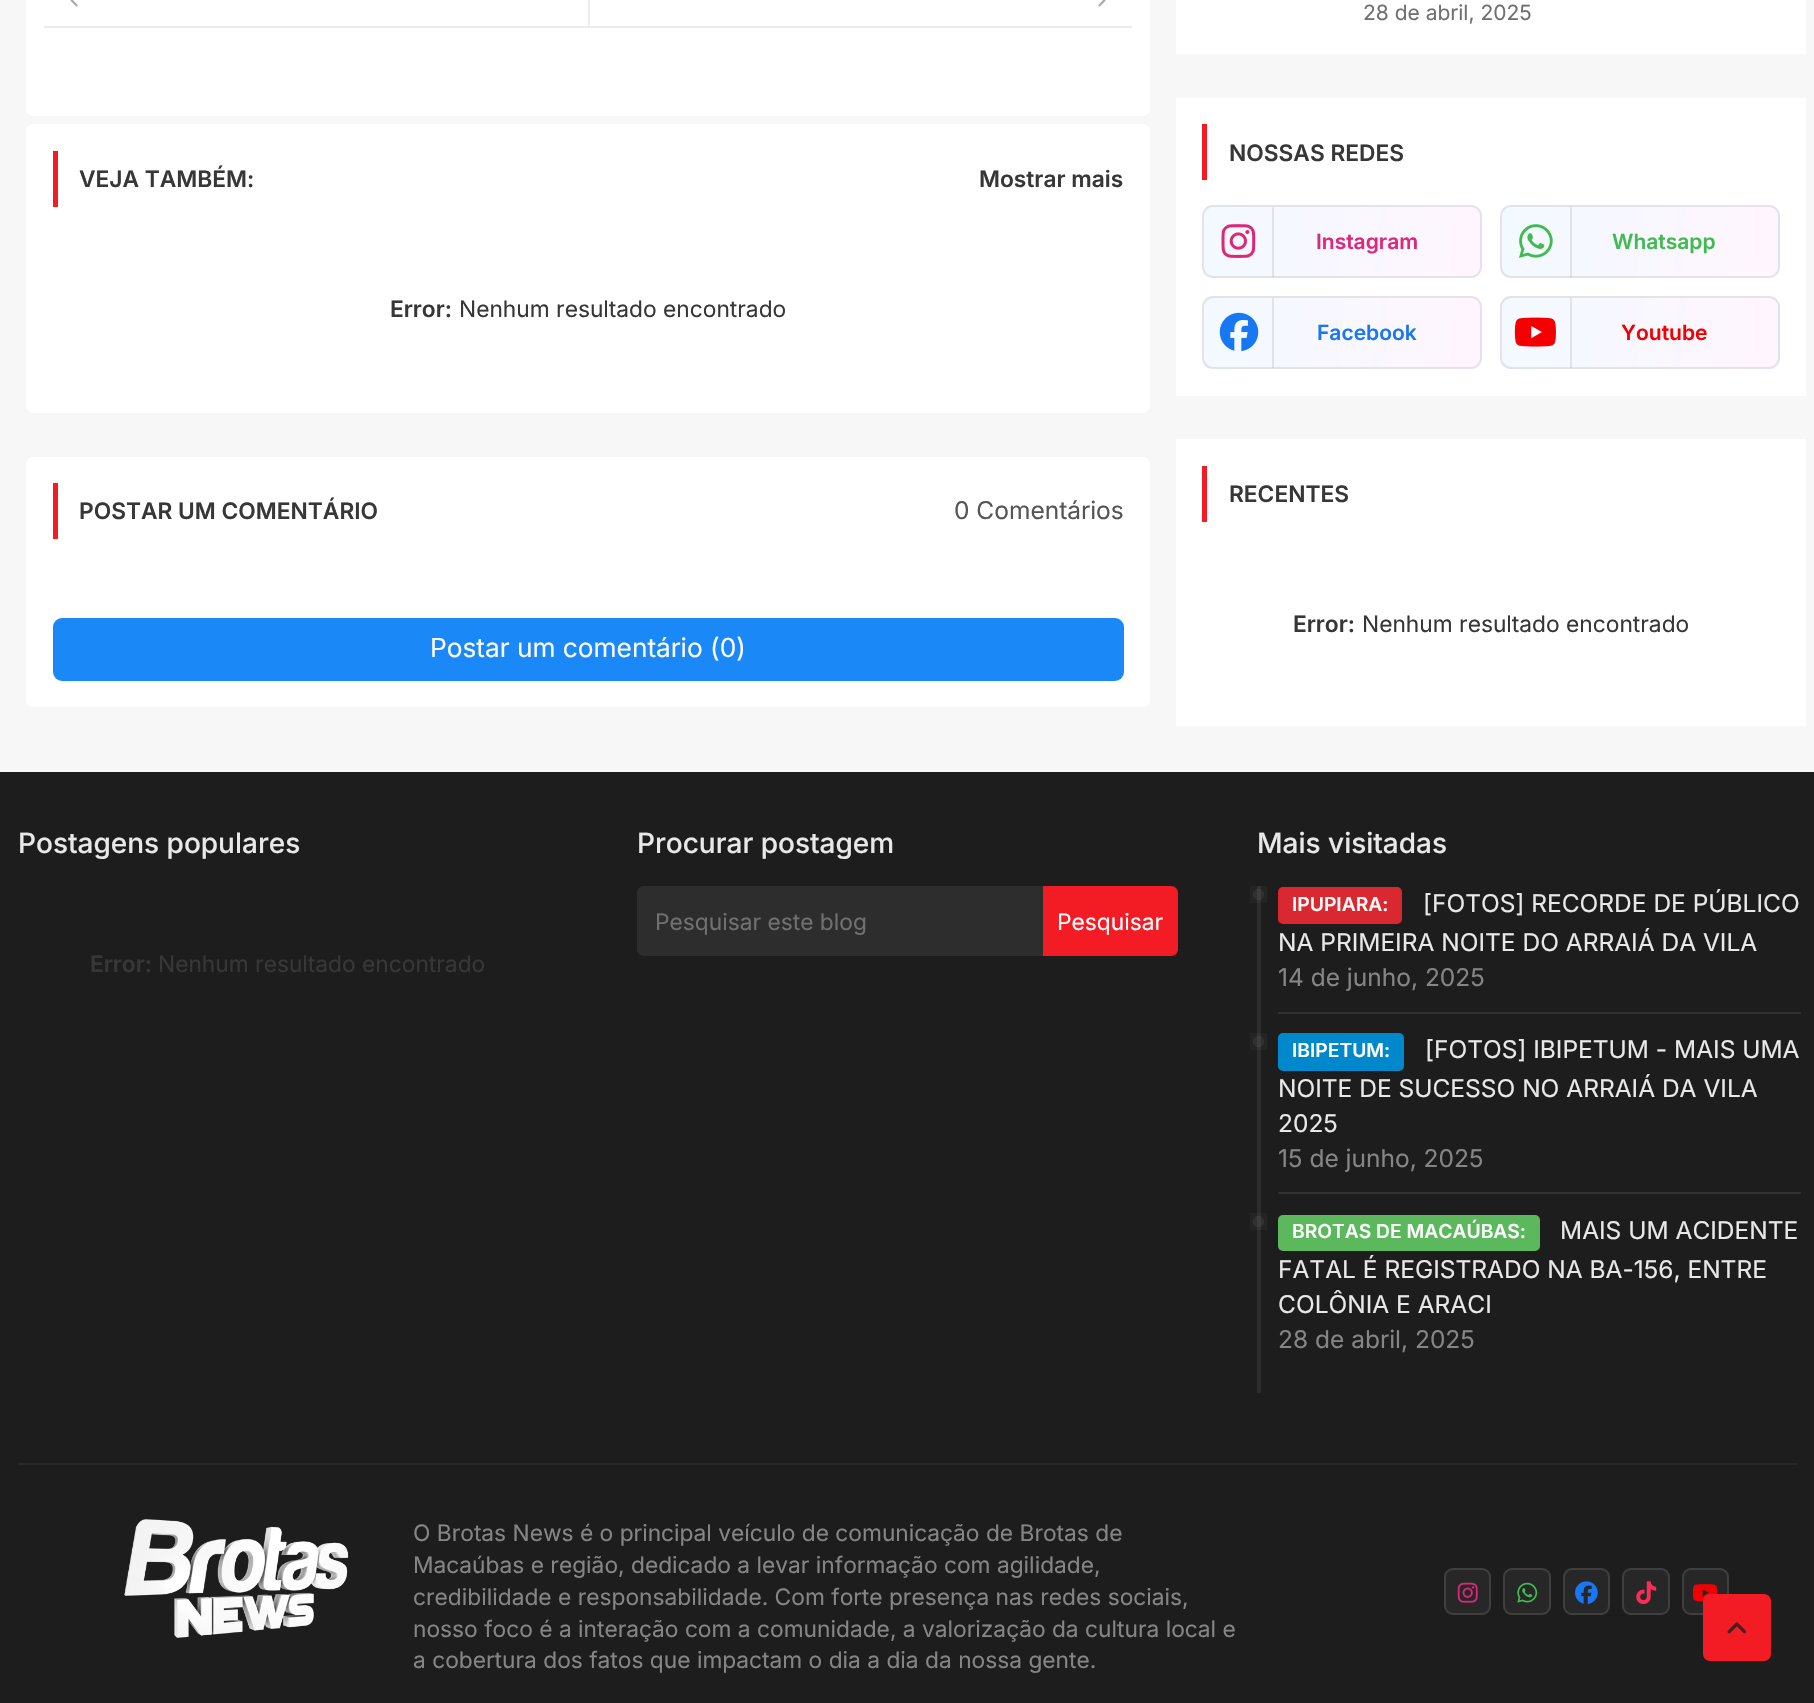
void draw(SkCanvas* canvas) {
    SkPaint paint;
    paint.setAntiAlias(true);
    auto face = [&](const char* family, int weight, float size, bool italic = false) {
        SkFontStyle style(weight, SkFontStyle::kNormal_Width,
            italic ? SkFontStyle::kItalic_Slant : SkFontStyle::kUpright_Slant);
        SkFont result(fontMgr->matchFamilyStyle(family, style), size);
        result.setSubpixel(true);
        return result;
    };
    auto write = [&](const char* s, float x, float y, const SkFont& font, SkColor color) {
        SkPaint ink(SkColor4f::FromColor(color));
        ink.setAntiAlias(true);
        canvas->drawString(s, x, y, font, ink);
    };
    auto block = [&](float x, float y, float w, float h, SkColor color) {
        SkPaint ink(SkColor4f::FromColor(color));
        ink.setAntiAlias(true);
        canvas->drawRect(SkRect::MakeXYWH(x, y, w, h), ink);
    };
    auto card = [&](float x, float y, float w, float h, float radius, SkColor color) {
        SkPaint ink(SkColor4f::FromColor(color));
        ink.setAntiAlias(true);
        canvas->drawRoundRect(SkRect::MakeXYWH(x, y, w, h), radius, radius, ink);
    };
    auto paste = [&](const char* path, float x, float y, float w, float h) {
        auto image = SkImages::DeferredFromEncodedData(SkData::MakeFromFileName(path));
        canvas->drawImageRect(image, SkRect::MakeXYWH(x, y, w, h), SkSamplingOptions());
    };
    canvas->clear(SkColorSetRGB(247, 247, 247));
    card(26, -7, 1124, 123, 7, SK_ColorWHITE);
    block(44, 26, 1088, 2, SkColorSetRGB(236, 236, 236));
    paste("pic1.png", 70, 0, 8, 7);
    block(588, 0, 2, 26, SkColorSetRGB(236, 236, 236));
    paste("pic2.png", 1098, 0, 8, 7);
    card(26, 124, 1124, 289, 7, SK_ColorWHITE);
    block(53, 151, 5, 56, SkColorSetRGB(244, 28, 36));
    auto kFont1 = face("Inter", 600, 22.75f);
    write("VEJA TAMBÉM:", 79, 187, kFont1, SkColorSetRGB(55, 55, 55));
    write("Mostrar mais", 979, 187, kFont1, SkColorSetRGB(55, 55, 55));
    write("Error:", 390, 317, kFont1, SkColorSetRGB(55, 55, 55));
    auto kFont2 = face("Inter", 400, 22.75f);
    write("Nenhum resultado encontrado", 459, 317, kFont2, SkColorSetRGB(55, 55, 55));
    card(26, 457, 1124, 250, 7, SK_ColorWHITE);
    block(53, 483, 5, 56, SkColorSetRGB(244, 28, 36));
    write("POSTAR UM COMENTÁRIO", 79, 519, kFont1, SkColorSetRGB(55, 55, 55));
    auto kFont3 = face("Inter", 400, 24.5f);
    write("0 Comentários", 954, 519, kFont3, SkColorSetRGB(85, 85, 85));
    card(53, 618, 1071, 63, 9, SkColorSetRGB(26, 136, 247));
    auto kFont4 = face("Inter", 400, 26.25f);
    write("Postar um comentário (0)", 430, 657, kFont4, SkColorSetRGB(251, 251, 251));
    block(1176, 0, 630, 54, SK_ColorWHITE);
    auto kFont5 = face("Inter", 400, 21);
    write("28 de abril, 2025", 1363, 20, kFont5, SkColorSetRGB(112, 112, 112));
    block(1176, 98, 630, 298, SK_ColorWHITE);
    block(1202, 124, 5, 56, SkColorSetRGB(244, 28, 36));
    write("NOSSAS REDES", 1229, 161, kFont1, SkColorSetRGB(55, 55, 55));
    canvas->save();
    canvas->clipPath(SkPathBuilder().moveTo(1213, 205).lineTo(1471, 205).cubicTo(1477, 205, 1482, 210, 1482, 216).lineTo(1482, 267).cubicTo(1482, 273, 1477, 278, 1471, 278).lineTo(1213, 278).cubicTo(1207, 278, 1202, 273, 1202, 267).lineTo(1202, 216).cubicTo(1202, 210, 1207, 205, 1213, 205).close().detach(), true);
    {
        const SkColor colors[] = {SkColorSetRGB(242, 249, 255), SkColorSetRGB(255, 245, 255)};
        const float stops[] = {0, 1};
        const SkPoint ends[] = {{1202, 159}, {1482, 184}};
        paint.setShader(SkGradientShader::MakeLinear(ends, colors, stops, 2, SkTileMode::kClamp));
        paint.setAlpha(255);
    }
    canvas->drawRect(SkRect::MakeXYWH(1204, 205, 277, 2), paint);
    {
        const SkColor colors[] = {SkColorSetRGB(242, 249, 255), SkColorSetRGB(255, 245, 255)};
        const float stops[] = {0, 1};
        const SkPoint ends[] = {{926, 229}, {1206, 254}};
        paint.setShader(SkGradientShader::MakeLinear(ends, colors, stops, 2, SkTileMode::kClamp));
        paint.setAlpha(255);
    }
    canvas->drawRect(SkRect::MakeXYWH(1202, 207, 2, 70), paint);
    {
        const SkColor colors[] = {SkColorSetRGB(242, 249, 255), SkColorSetRGB(255, 245, 255)};
        const float stops[] = {0, 1};
        const SkPoint ends[] = {{1202, 229}, {1482, 254}};
        paint.setShader(SkGradientShader::MakeLinear(ends, colors, stops, 2, SkTileMode::kClamp));
        paint.setAlpha(255);
    }
    canvas->drawRect(SkRect::MakeXYWH(1204, 207, 277, 70), paint);
    {
        const SkColor colors[] = {SkColorSetRGB(242, 249, 255), SkColorSetRGB(255, 245, 255)};
        const float stops[] = {0, 1};
        const SkPoint ends[] = {{1479, 229}, {1759, 254}};
        paint.setShader(SkGradientShader::MakeLinear(ends, colors, stops, 2, SkTileMode::kClamp));
        paint.setAlpha(255);
    }
    canvas->drawRect(SkRect::MakeXYWH(1481, 207, 1, 70), paint);
    {
        const SkColor colors[] = {SkColorSetRGB(242, 249, 255), SkColorSetRGB(255, 245, 255)};
        const float stops[] = {0, 1};
        const SkPoint ends[] = {{1202, 299}, {1482, 324}};
        paint.setShader(SkGradientShader::MakeLinear(ends, colors, stops, 2, SkTileMode::kClamp));
        paint.setAlpha(255);
    }
    canvas->drawRect(SkRect::MakeXYWH(1204, 277, 277, 1), paint);
    canvas->restore();
    paint.setStyle(SkPaint::kStroke_Style);
    paint.setStrokeWidth(2);
    paint.setShader(nullptr);
    paint.setColor(SkColorSetARGB(54, 151, 151, 151));
    canvas->drawRoundRect(SkRect::MakeXYWH(1203, 206, 278, 71), 10, 10, paint);
    block(1272, 207, 2, 70, SkColorSetARGB(54, 151, 151, 151));
    paste("pic3.png", 1221, 224, 35, 34);
    auto kFont6 = face("Inter", 600, 21);
    write("Instagram", 1316, 249, kFont6, SkColorSetRGB(221, 39, 123));
    canvas->save();
    canvas->clipPath(SkPathBuilder().moveTo(1511, 205).lineTo(1769, 205).cubicTo(1775, 205, 1780, 210, 1780, 216).lineTo(1780, 267).cubicTo(1780, 273, 1775, 278, 1769, 278).lineTo(1511, 278).cubicTo(1505, 278, 1500, 273, 1500, 267).lineTo(1500, 216).cubicTo(1500, 210, 1505, 205, 1511, 205).close().detach(), true);
    paint.setStyle(SkPaint::kFill_Style);
    {
        const SkColor colors[] = {SkColorSetRGB(242, 249, 255), SkColorSetRGB(255, 245, 255)};
        const float stops[] = {0, 1};
        const SkPoint ends[] = {{1500, 159}, {1780, 184}};
        paint.setShader(SkGradientShader::MakeLinear(ends, colors, stops, 2, SkTileMode::kClamp));
        paint.setAlpha(255);
    }
    canvas->drawRect(SkRect::MakeXYWH(1502, 205, 276, 2), paint);
    {
        const SkColor colors[] = {SkColorSetRGB(242, 249, 255), SkColorSetRGB(255, 245, 255)};
        const float stops[] = {0, 1};
        const SkPoint ends[] = {{1223, 229}, {1503, 254}};
        paint.setShader(SkGradientShader::MakeLinear(ends, colors, stops, 2, SkTileMode::kClamp));
        paint.setAlpha(255);
    }
    canvas->drawRect(SkRect::MakeXYWH(1500, 207, 2, 70), paint);
    {
        const SkColor colors[] = {SkColorSetRGB(242, 249, 255), SkColorSetRGB(255, 245, 255)};
        const float stops[] = {0, 1};
        const SkPoint ends[] = {{1500, 229}, {1780, 254}};
        paint.setShader(SkGradientShader::MakeLinear(ends, colors, stops, 2, SkTileMode::kClamp));
        paint.setAlpha(255);
    }
    canvas->drawRect(SkRect::MakeXYWH(1502, 207, 276, 70), paint);
    {
        const SkColor colors[] = {SkColorSetRGB(242, 249, 255), SkColorSetRGB(255, 245, 255)};
        const float stops[] = {0, 1};
        const SkPoint ends[] = {{1776, 229}, {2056, 254}};
        paint.setShader(SkGradientShader::MakeLinear(ends, colors, stops, 2, SkTileMode::kClamp));
        paint.setAlpha(255);
    }
    canvas->drawRect(SkRect::MakeXYWH(1778, 207, 2, 70), paint);
    {
        const SkColor colors[] = {SkColorSetRGB(242, 249, 255), SkColorSetRGB(255, 245, 255)};
        const float stops[] = {0, 1};
        const SkPoint ends[] = {{1500, 299}, {1780, 324}};
        paint.setShader(SkGradientShader::MakeLinear(ends, colors, stops, 2, SkTileMode::kClamp));
        paint.setAlpha(255);
    }
    canvas->drawRect(SkRect::MakeXYWH(1502, 277, 276, 1), paint);
    canvas->restore();
    paint.setStyle(SkPaint::kStroke_Style);
    paint.setShader(nullptr);
    paint.setColor(SkColorSetARGB(54, 151, 151, 151));
    canvas->drawRoundRect(SkRect::MakeXYWH(1501, 206, 278, 71), 10, 10, paint);
    block(1570, 207, 2, 70, SkColorSetARGB(54, 151, 151, 151));
    paste("pic4.png", 1519, 224, 34, 34);
    write("Whatsapp", 1612, 249, kFont6, SkColorSetRGB(63, 187, 80));
    canvas->save();
    canvas->clipPath(SkPathBuilder().moveTo(1213, 296).lineTo(1471, 296).cubicTo(1477, 296, 1482, 301, 1482, 307).lineTo(1482, 358).cubicTo(1482, 364, 1477, 369, 1471, 369).lineTo(1213, 369).cubicTo(1207, 369, 1202, 364, 1202, 358).lineTo(1202, 307).cubicTo(1202, 301, 1207, 296, 1213, 296).close().detach(), true);
    paint.setStyle(SkPaint::kFill_Style);
    {
        const SkColor colors[] = {SkColorSetRGB(242, 249, 255), SkColorSetRGB(255, 245, 255)};
        const float stops[] = {0, 1};
        const SkPoint ends[] = {{1202, 250}, {1482, 275}};
        paint.setShader(SkGradientShader::MakeLinear(ends, colors, stops, 2, SkTileMode::kClamp));
        paint.setAlpha(255);
    }
    canvas->drawRect(SkRect::MakeXYWH(1204, 296, 277, 2), paint);
    {
        const SkColor colors[] = {SkColorSetRGB(242, 249, 255), SkColorSetRGB(255, 245, 255)};
        const float stops[] = {0, 1};
        const SkPoint ends[] = {{926, 320}, {1206, 345}};
        paint.setShader(SkGradientShader::MakeLinear(ends, colors, stops, 2, SkTileMode::kClamp));
        paint.setAlpha(255);
    }
    canvas->drawRect(SkRect::MakeXYWH(1202, 298, 2, 70), paint);
    {
        const SkColor colors[] = {SkColorSetRGB(242, 249, 255), SkColorSetRGB(255, 245, 255)};
        const float stops[] = {0, 1};
        const SkPoint ends[] = {{1202, 320}, {1482, 345}};
        paint.setShader(SkGradientShader::MakeLinear(ends, colors, stops, 2, SkTileMode::kClamp));
        paint.setAlpha(255);
    }
    canvas->drawRect(SkRect::MakeXYWH(1204, 298, 277, 70), paint);
    {
        const SkColor colors[] = {SkColorSetRGB(242, 249, 255), SkColorSetRGB(255, 245, 255)};
        const float stops[] = {0, 1};
        const SkPoint ends[] = {{1479, 320}, {1759, 345}};
        paint.setShader(SkGradientShader::MakeLinear(ends, colors, stops, 2, SkTileMode::kClamp));
        paint.setAlpha(255);
    }
    canvas->drawRect(SkRect::MakeXYWH(1481, 298, 1, 70), paint);
    {
        const SkColor colors[] = {SkColorSetRGB(242, 249, 255), SkColorSetRGB(255, 245, 255)};
        const float stops[] = {0, 1};
        const SkPoint ends[] = {{1202, 390}, {1482, 415}};
        paint.setShader(SkGradientShader::MakeLinear(ends, colors, stops, 2, SkTileMode::kClamp));
        paint.setAlpha(255);
    }
    canvas->drawRect(SkRect::MakeXYWH(1204, 368, 277, 1), paint);
    canvas->restore();
    paint.setStyle(SkPaint::kStroke_Style);
    paint.setShader(nullptr);
    paint.setColor(SkColorSetARGB(54, 151, 151, 151));
    canvas->drawRoundRect(SkRect::MakeXYWH(1203, 297, 278, 71), 10, 10, paint);
    block(1272, 298, 2, 70, SkColorSetARGB(54, 151, 151, 151));
    paste("pic5.png", 1219, 312, 40, 40);
    write("Facebook", 1317, 340, kFont6, SkColorSetRGB(24, 119, 242));
    canvas->save();
    canvas->clipPath(SkPathBuilder().moveTo(1511, 296).lineTo(1769, 296).cubicTo(1775, 296, 1780, 301, 1780, 307).lineTo(1780, 358).cubicTo(1780, 364, 1775, 369, 1769, 369).lineTo(1511, 369).cubicTo(1505, 369, 1500, 364, 1500, 358).lineTo(1500, 307).cubicTo(1500, 301, 1505, 296, 1511, 296).close().detach(), true);
    paint.setStyle(SkPaint::kFill_Style);
    {
        const SkColor colors[] = {SkColorSetRGB(242, 249, 255), SkColorSetRGB(255, 245, 255)};
        const float stops[] = {0, 1};
        const SkPoint ends[] = {{1500, 250}, {1780, 275}};
        paint.setShader(SkGradientShader::MakeLinear(ends, colors, stops, 2, SkTileMode::kClamp));
        paint.setAlpha(255);
    }
    canvas->drawRect(SkRect::MakeXYWH(1502, 296, 276, 2), paint);
    {
        const SkColor colors[] = {SkColorSetRGB(242, 249, 255), SkColorSetRGB(255, 245, 255)};
        const float stops[] = {0, 1};
        const SkPoint ends[] = {{1223, 320}, {1503, 345}};
        paint.setShader(SkGradientShader::MakeLinear(ends, colors, stops, 2, SkTileMode::kClamp));
        paint.setAlpha(255);
    }
    canvas->drawRect(SkRect::MakeXYWH(1500, 298, 2, 70), paint);
    {
        const SkColor colors[] = {SkColorSetRGB(242, 249, 255), SkColorSetRGB(255, 245, 255)};
        const float stops[] = {0, 1};
        const SkPoint ends[] = {{1500, 320}, {1780, 345}};
        paint.setShader(SkGradientShader::MakeLinear(ends, colors, stops, 2, SkTileMode::kClamp));
        paint.setAlpha(255);
    }
    canvas->drawRect(SkRect::MakeXYWH(1502, 298, 276, 70), paint);
    {
        const SkColor colors[] = {SkColorSetRGB(242, 249, 255), SkColorSetRGB(255, 245, 255)};
        const float stops[] = {0, 1};
        const SkPoint ends[] = {{1776, 320}, {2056, 345}};
        paint.setShader(SkGradientShader::MakeLinear(ends, colors, stops, 2, SkTileMode::kClamp));
        paint.setAlpha(255);
    }
    canvas->drawRect(SkRect::MakeXYWH(1778, 298, 2, 70), paint);
    {
        const SkColor colors[] = {SkColorSetRGB(242, 249, 255), SkColorSetRGB(255, 245, 255)};
        const float stops[] = {0, 1};
        const SkPoint ends[] = {{1500, 390}, {1780, 415}};
        paint.setShader(SkGradientShader::MakeLinear(ends, colors, stops, 2, SkTileMode::kClamp));
        paint.setAlpha(255);
    }
    canvas->drawRect(SkRect::MakeXYWH(1502, 368, 276, 1), paint);
    canvas->restore();
    paint.setStyle(SkPaint::kStroke_Style);
    paint.setShader(nullptr);
    paint.setColor(SkColorSetARGB(54, 151, 151, 151));
    canvas->drawRoundRect(SkRect::MakeXYWH(1501, 297, 278, 71), 10, 10, paint);
    block(1570, 298, 2, 70, SkColorSetARGB(54, 151, 151, 151));
    paste("pic6.png", 1514, 317, 42, 30);
    write("Youtube", 1621, 340, kFont6, SkColorSetRGB(245, 0, 0));
    block(1176, 439, 630, 287, SK_ColorWHITE);
    block(1202, 466, 5, 56, SkColorSetRGB(244, 28, 36));
    write("RECENTES", 1229, 502, kFont1, SkColorSetRGB(55, 55, 55));
    write("Error:", 1293, 632, kFont1, SkColorSetRGB(55, 55, 55));
    write("Nenhum resultado encontrado", 1362, 632, kFont2, SkColorSetRGB(55, 55, 55));
    block(0, 772, 1814, 931, SkColorSetRGB(29, 29, 29));
    auto kFont7 = face("Inter", 500, 28);
    write("Postagens populares", 18, 853, kFont7, SkColorSetRGB(232, 232, 232));
    write("Error:", 90, 972, kFont1, SkColorSetRGB(55, 55, 55));
    write("Nenhum resultado encontrado", 158, 972, kFont2, SkColorSetRGB(55, 55, 55));
    write("Procurar postagem", 637, 853, kFont7, SkColorSetRGB(232, 232, 232));
    paint.setStyle(SkPaint::kFill_Style);
    paint.setColor(SkColorSetRGB(45, 45, 45));
    canvas->drawPath(SkPathBuilder().moveTo(644, 886).lineTo(1043, 886).lineTo(1043, 956).lineTo(644, 956).cubicTo(640, 956, 637, 953, 637, 949).lineTo(637, 893).cubicTo(637, 889, 640, 886, 644, 886).close().detach(), paint);
    write("Pesquisar este blog", 655, 930, kFont2, SkColorSetRGB(112, 112, 112));
    paint.setColor(SkColorSetRGB(244, 28, 36));
    canvas->drawPath(SkPathBuilder().moveTo(1043, 886).lineTo(1171, 886).cubicTo(1175, 886, 1178, 889, 1178, 893).lineTo(1178, 949).cubicTo(1178, 953, 1175, 956, 1171, 956).lineTo(1043, 956).close().detach(), paint);
    write("Pesquisar", 1057, 930, kFont2, SkColorSetRGB(251, 251, 251));
    write("Mais visitadas", 1257, 853, kFont7, SkColorSetRGB(232, 232, 232));
    block(1257, 886, 4, 507, SkColorSetRGB(45, 45, 45));
    block(1278, 1012, 523, 2, SkColorSetRGB(49, 49, 49));
    paint.setColor(SkColorSetARGB(38, 155, 155, 155));
    canvas->drawCircle(1258.5f, 894.5f, 5.5f, paint);
    paint.setStyle(SkPaint::kStroke_Style);
    paint.setStrokeWidth(4);
    paint.setColor(SkColorSetARGB(13, 155, 155, 155));
    canvas->drawRect(SkRect::MakeXYWH(1252, 888, 13, 13), paint);
    card(1278, 887, 124, 37, 5, SkColorSetRGB(217, 40, 47));
    auto kFont8 = face("Inter", 600, 19.25f);
    write("IPUPIARA:", 1292, 911, kFont8, SkColorSetRGB(251, 251, 251));
    write("[FOTOS] RECORDE DE PÚBLICO", 1423, 912, kFont3, SkColorSetRGB(232, 232, 232));
    write("NA PRIMEIRA NOITE DO ARRAIÁ DA VILA", 1278, 951, kFont3, SkColorSetRGB(232, 232, 232));
    write("14 de junho, 2025", 1278, 986, kFont3, SkColorSetRGB(133, 133, 133));
    block(1278, 1192, 523, 2, SkColorSetRGB(49, 49, 49));
    paint.setStyle(SkPaint::kFill_Style);
    paint.setColor(SkColorSetARGB(38, 155, 155, 155));
    canvas->drawCircle(1258.5f, 1041.5f, 5.5f, paint);
    paint.setStyle(SkPaint::kStroke_Style);
    paint.setColor(SkColorSetARGB(13, 155, 155, 155));
    canvas->drawRect(SkRect::MakeXYWH(1252, 1035, 13, 13), paint);
    card(1278, 1033, 126, 38, 5, SkColorSetRGB(0, 136, 204));
    write("IBIPETUM:", 1292, 1057, kFont8, SkColorSetRGB(251, 251, 251));
    write("[FOTOS] IBIPETUM - MAIS UMA", 1425, 1058, kFont3, SkColorSetRGB(232, 232, 232));
    write("NOITE DE SUCESSO NO ARRAIÁ DA VILA", 1278, 1097, kFont3, SkColorSetRGB(232, 232, 232));
    write("2025", 1278, 1132, kFont3, SkColorSetRGB(232, 232, 232));
    write("15 de junho, 2025", 1278, 1167, kFont3, SkColorSetRGB(133, 133, 133));
    paint.setStyle(SkPaint::kFill_Style);
    paint.setColor(SkColorSetARGB(38, 155, 155, 155));
    canvas->drawCircle(1258.5f, 1221.5f, 5.5f, paint);
    paint.setStyle(SkPaint::kStroke_Style);
    paint.setColor(SkColorSetARGB(13, 155, 155, 155));
    canvas->drawRect(SkRect::MakeXYWH(1252, 1215, 13, 13), paint);
    card(1278, 1215, 262, 36, 5, SkColorSetRGB(92, 184, 92));
    write("BROTAS DE MACAÚBAS:", 1292, 1238, kFont8, SkColorSetRGB(251, 251, 251));
    write("MAIS UM ACIDENTE", 1560, 1239, kFont3, SkColorSetRGB(232, 232, 232));
    write("FATAL É REGISTRADO NA BA-156, ENTRE", 1278, 1278, kFont3, SkColorSetRGB(232, 232, 232));
    write("COLÔNIA E ARACI", 1278, 1313, kFont3, SkColorSetRGB(232, 232, 232));
    write("28 de abril, 2025", 1278, 1348, kFont3, SkColorSetRGB(133, 133, 133));
    block(18, 1463, 1779, 2, SkColorSetRGB(41, 41, 41));
    paste("pic7.png", 124, 1519, 225, 119);
    write("O Brotas News é o principal veículo de comunicação de Brotas de", 413, 1541, kFont2, SkColorSetRGB(133, 133, 133));
    write("Macaúbas e região, dedicado a levar informação com agilidade,", 413, 1573, kFont2, SkColorSetRGB(133, 133, 133));
    write("credibilidade e responsabilidade. Com forte presença nas redes sociais,", 413, 1605, kFont2, SkColorSetRGB(133, 133, 133));
    write("nosso foco é a interação com a comunidade, a valorização da cultura local e", 413, 1637, kFont2, SkColorSetRGB(133, 133, 133));
    write("a cobertura dos fatos que impactam o dia a dia da nossa gente.", 413, 1668, kFont2, SkColorSetRGB(133, 133, 133));
    card(1444, 1568, 47, 47, 9, SkColorSetRGB(39, 39, 39));
    paint.setStrokeWidth(2);
    paint.setColor(SkColorSetARGB(77, 117, 117, 117));
    canvas->drawRoundRect(SkRect::MakeXYWH(1445, 1569, 45, 45), 8, 8, paint);
    paste("pic8.png", 1457, 1582, 21, 21);
    card(1503, 1568, 48, 47, 9, SkColorSetRGB(39, 39, 39));
    canvas->drawRoundRect(SkRect::MakeXYWH(1504, 1569, 46, 45), 8, 8, paint);
    paste("pic9.png", 1517, 1582, 21, 21);
    card(1563, 1568, 47, 47, 9, SkColorSetRGB(39, 39, 39));
    canvas->drawRoundRect(SkRect::MakeXYWH(1564, 1569, 45, 45), 8, 8, paint);
    paste("pic10.png", 1575, 1581, 23, 23);
    card(1622, 1568, 48, 47, 9, SkColorSetRGB(39, 39, 39));
    canvas->drawRoundRect(SkRect::MakeXYWH(1623, 1569, 46, 45), 8, 8, paint);
    paste("pic11.png", 1636, 1581, 21, 24);
    card(1682, 1568, 47, 47, 9, SkColorSetRGB(39, 39, 39));
    canvas->drawRoundRect(SkRect::MakeXYWH(1683, 1569, 45, 45), 8, 8, paint);
    paste("pic12.png", 1692, 1584, 26, 18);
    card(1703, 1594, 68, 67, 7, SkColorSetRGB(244, 28, 36));
    paste("pic13.png", 1727, 1622, 20, 12);
}
